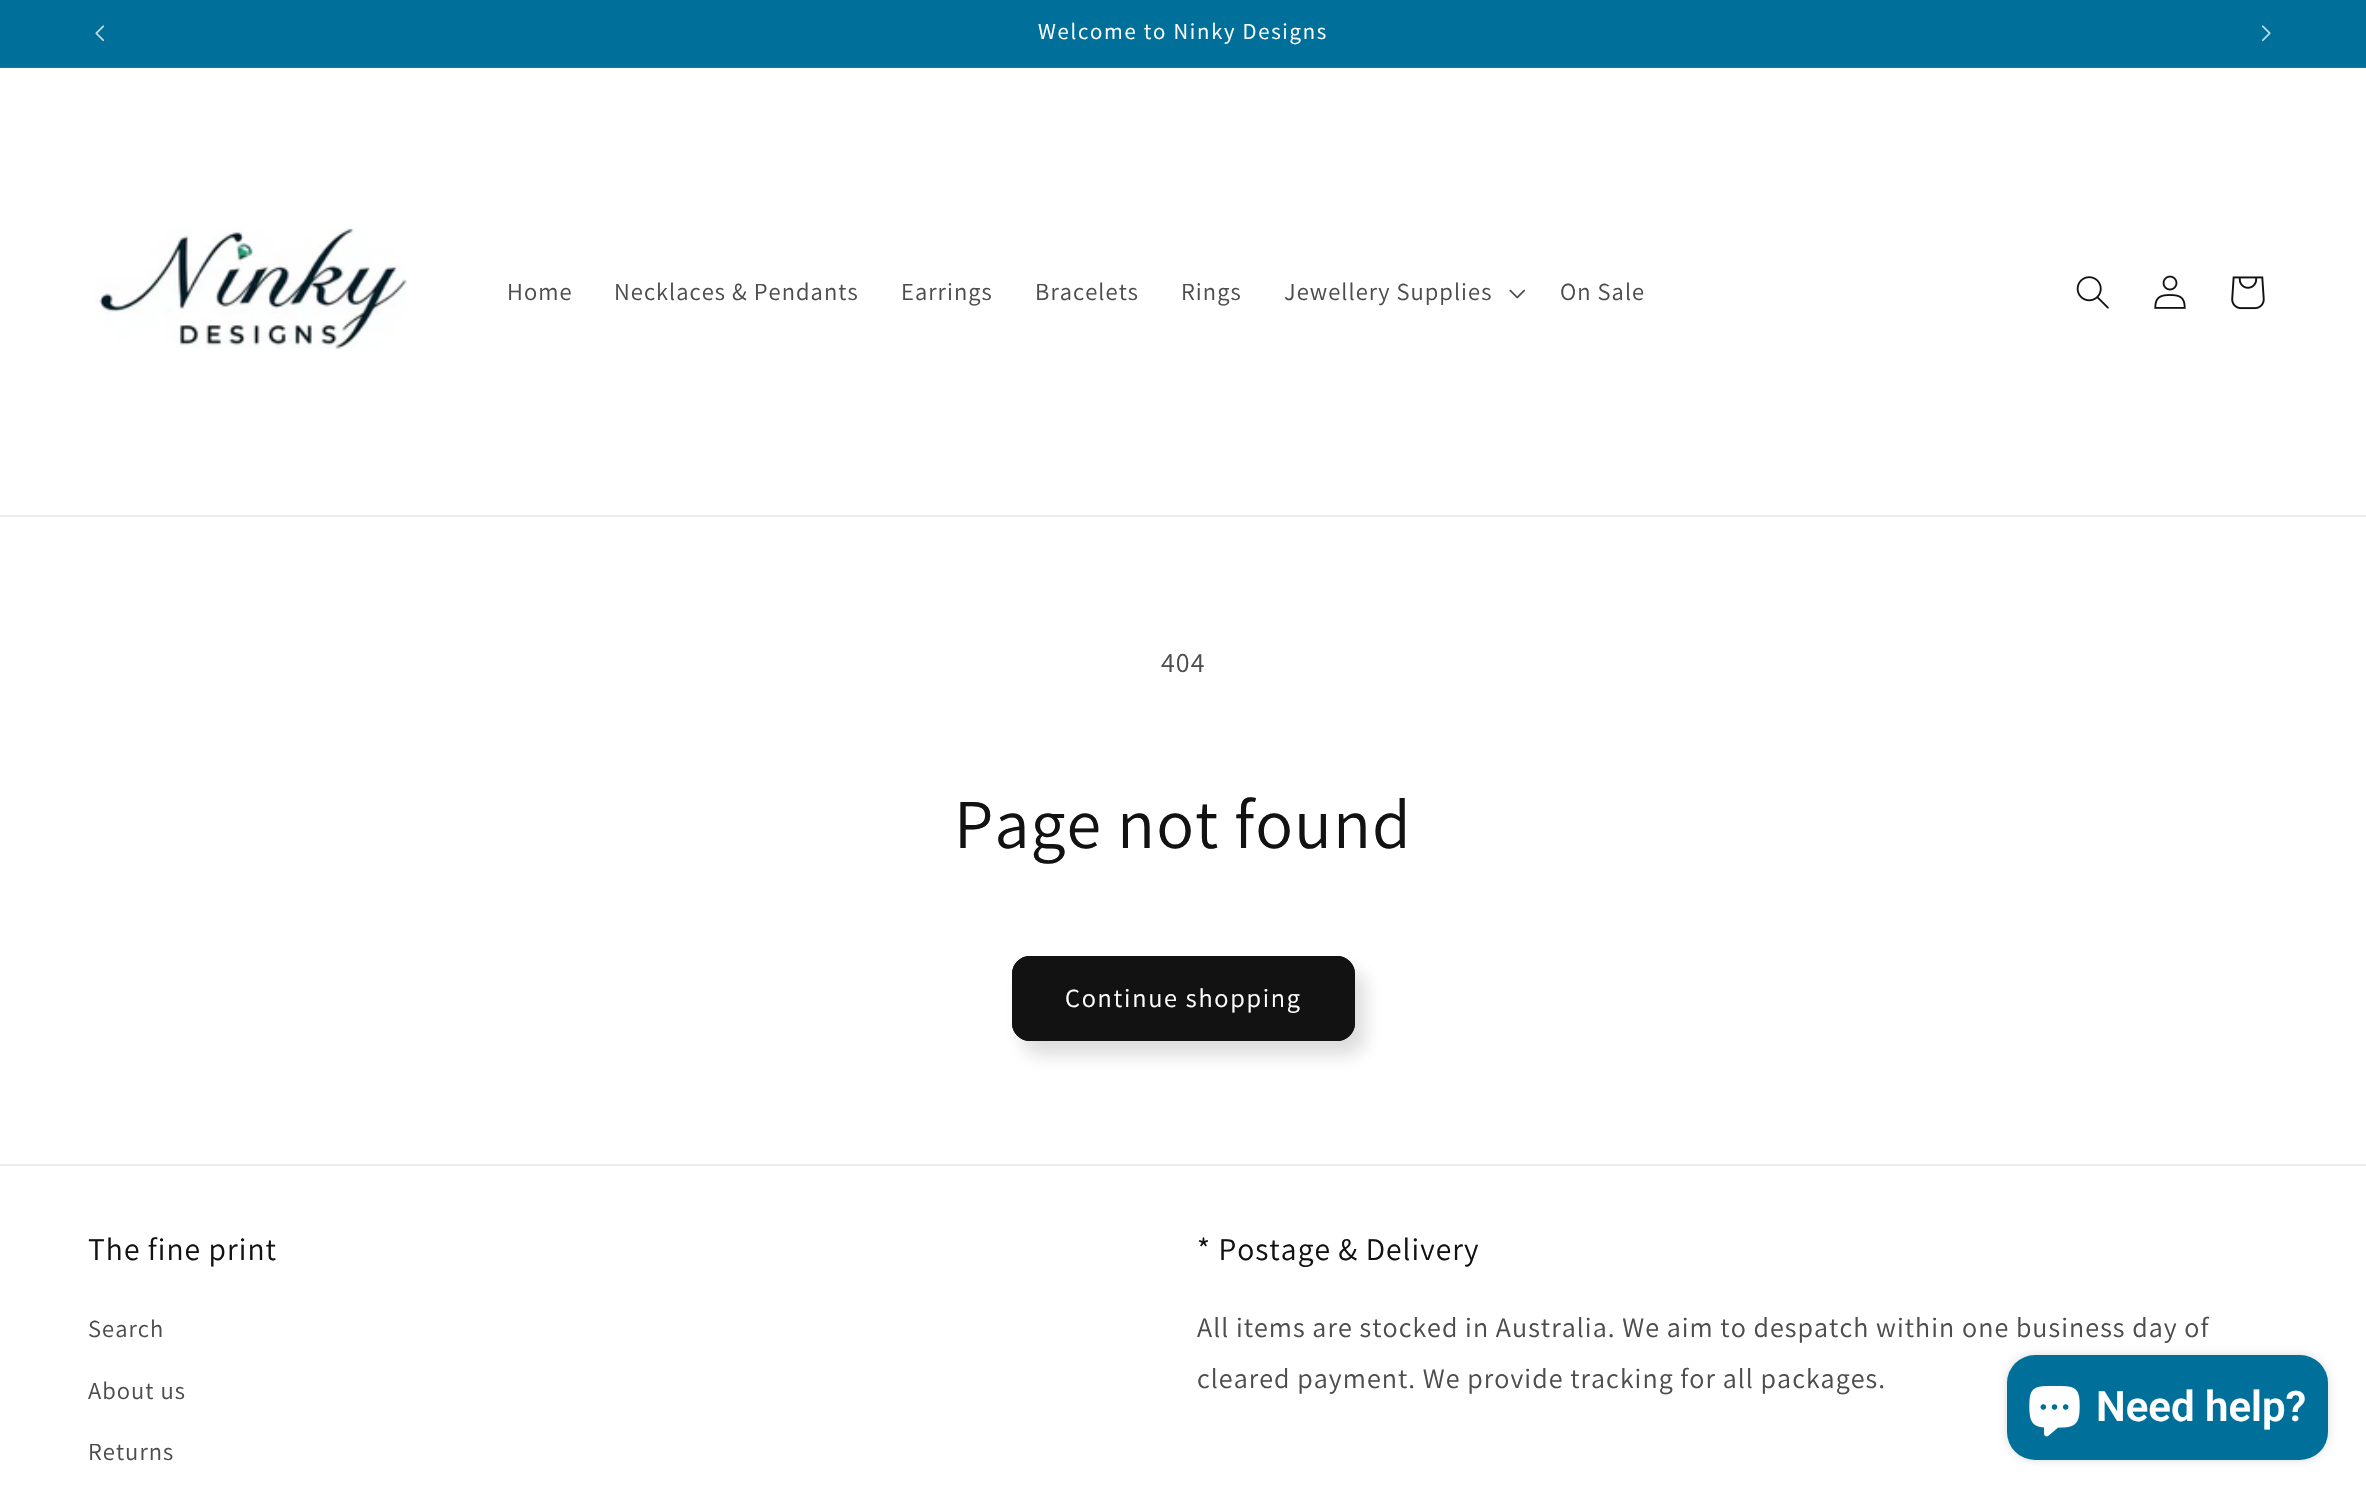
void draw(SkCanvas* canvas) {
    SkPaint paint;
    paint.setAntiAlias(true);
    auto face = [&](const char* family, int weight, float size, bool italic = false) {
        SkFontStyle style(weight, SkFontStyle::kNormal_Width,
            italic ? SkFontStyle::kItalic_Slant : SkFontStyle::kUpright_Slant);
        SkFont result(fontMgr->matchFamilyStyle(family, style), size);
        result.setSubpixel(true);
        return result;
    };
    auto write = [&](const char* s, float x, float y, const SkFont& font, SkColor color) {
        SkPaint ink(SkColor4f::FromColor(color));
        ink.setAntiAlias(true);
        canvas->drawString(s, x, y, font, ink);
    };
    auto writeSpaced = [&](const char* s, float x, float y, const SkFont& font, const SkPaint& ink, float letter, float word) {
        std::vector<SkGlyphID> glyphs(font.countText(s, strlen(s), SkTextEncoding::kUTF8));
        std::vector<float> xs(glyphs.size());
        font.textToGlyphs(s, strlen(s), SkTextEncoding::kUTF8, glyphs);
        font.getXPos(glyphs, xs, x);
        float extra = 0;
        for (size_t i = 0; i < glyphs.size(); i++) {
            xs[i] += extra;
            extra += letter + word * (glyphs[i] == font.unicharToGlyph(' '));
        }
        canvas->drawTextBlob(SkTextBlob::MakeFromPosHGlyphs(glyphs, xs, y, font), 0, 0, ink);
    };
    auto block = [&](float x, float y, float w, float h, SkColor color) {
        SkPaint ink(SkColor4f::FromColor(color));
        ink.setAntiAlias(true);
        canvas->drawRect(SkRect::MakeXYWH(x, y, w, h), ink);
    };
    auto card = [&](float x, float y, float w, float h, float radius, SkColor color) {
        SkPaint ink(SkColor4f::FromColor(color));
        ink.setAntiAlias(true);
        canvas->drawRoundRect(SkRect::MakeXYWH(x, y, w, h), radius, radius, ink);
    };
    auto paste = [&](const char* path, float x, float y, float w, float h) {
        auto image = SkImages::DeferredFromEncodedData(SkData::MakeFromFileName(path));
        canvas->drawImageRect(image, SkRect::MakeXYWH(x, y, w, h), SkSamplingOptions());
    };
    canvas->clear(SK_ColorWHITE);
    block(0, 0, 2366, 67, SkColorSetRGB(0, 111, 153));
    block(0, 67, 2366, 1, SkColorSetRGB(20, 123, 161));
    paste("pic1.png", 95, 25, 10, 17);
    auto kFont1 = face("Assistant", 400, 22.75f);
    paint.setColor(SK_ColorWHITE);
    writeSpaced("Welcome to Ninky Designs", 1038, 39, kFont1, paint, 1.75f, 0);
    paste("pic2.png", 2261, 25, 10, 17);
    block(0, 515, 2366, 2, SkColorSetRGB(236, 236, 236));
    paste("pic3.png", 95, 228, 312, 121);
    auto kFont2 = face("Assistant", 400, 24.5f);
    paint.setColor(SkColorSetRGB(77, 77, 77));
    writeSpaced("Home", 507, 300, kFont2, paint, 1.05f, 0);
    writeSpaced("Necklaces & Pendants", 614, 300, kFont2, paint, 1.05f, 0);
    writeSpaced("Earrings", 901, 300, kFont2, paint, 1.05f, 0);
    writeSpaced("Bracelets", 1035, 300, kFont2, paint, 1.05f, 0);
    writeSpaced("Rings", 1181, 300, kFont2, paint, 1.05f, 0);
    writeSpaced("Jewellery Supplies", 1284, 300, kFont2, paint, 1.05f, 0);
    paste("pic4.png", 1509, 289, 17, 10);
    writeSpaced("On Sale", 1560, 300, kFont2, paint, 1.05f, 0);
    paste("pic5.png", 2076, 276, 33, 33);
    paste("pic6.png", 2154, 275, 32, 34);
    paste("pic7.png", 2231, 276, 34, 34);
    auto kFont3 = face("Assistant", 400, 28);
    writeSpaced("404", 1161, 672, kFont3, paint, 1.05f, 0);
    auto kFont4 = face("Assistant", 400, 70);
    paint.setColor(SkColorSetRGB(18, 18, 18));
    writeSpaced("Page not found", 954, 848, kFont4, paint, 1.05f, 0);
    paint.setColor(SkColorSetARGB(38, 18, 18, 18));
    paint.setMaskFilter(SkMaskFilter::MakeBlur(kNormal_SkBlurStyle, 9));
    canvas->drawRoundRect(SkRect::MakeXYWH(1022, 970, 343, 85), 18, 18, paint);
    paint.setMaskFilter(nullptr);
    card(1012, 956, 343, 85, 18, SkColorSetRGB(18, 18, 18));
    paint.setStyle(SkPaint::kStroke_Style);
    paint.setStrokeWidth(4);
    paint.setColor(SkColorSetRGB(18, 18, 18));
    canvas->drawRoundRect(SkRect::MakeXYWH(1014, 958, 339, 81), 16, 16, paint);
    auto kFont5 = face("Assistant", 400, 26.25f);
    paint.setStyle(SkPaint::kFill_Style);
    paint.setColor(SK_ColorWHITE);
    writeSpaced("Continue shopping", 1065, 1007, kFont5, paint, 1.75f, 0);
    block(0, 1164, 2366, 2, SkColorSetRGB(236, 236, 236));
    auto kFont6 = face("Assistant", 400, 31.5f);
    paint.setColor(SkColorSetRGB(18, 18, 18));
    writeSpaced("The fine print", 88, 1260, kFont6, paint, 1.05f, 0);
    paint.setColor(SkColorSetRGB(77, 77, 77));
    writeSpaced("Search", 88, 1337, kFont2, paint, 1.05f, 0);
    writeSpaced("About us", 88, 1399, kFont2, paint, 1.05f, 0);
    writeSpaced("Returns", 88, 1460, kFont2, paint, 1.05f, 0);
    paint.setColor(SkColorSetRGB(18, 18, 18));
    writeSpaced("* Postage & Delivery", 1197, 1260, kFont6, paint, 1.05f, 0);
    paint.setColor(SkColorSetRGB(77, 77, 77));
    writeSpaced("All items are stocked in Australia. We aim to despatch within one business day of", 1197, 1337, kFont3, paint, 1.05f, 0);
    writeSpaced("cleared payment. We provide tracking for all packages.", 1197, 1388, kFont3, paint, 1.05f, 0);
    paint.setColor(SkColorSetARGB(38, 0, 0, 0));
    paint.setMaskFilter(SkMaskFilter::MakeBlur(kNormal_SkBlurStyle, 4.5f));
    canvas->drawRoundRect(SkRect::MakeXYWH(2007, 1355, 321, 105), 28, 28, paint);
    paint.setMaskFilter(nullptr);
    card(2007, 1355, 321, 105, 28, SkColorSetRGB(0, 111, 153));
    paste("pic8.png", 2029, 1386, 51, 51);
    auto kFont7 = face("Roboto", 600, 42);
    write("Need help?", 2096, 1421, kFont7, SK_ColorWHITE);
}
